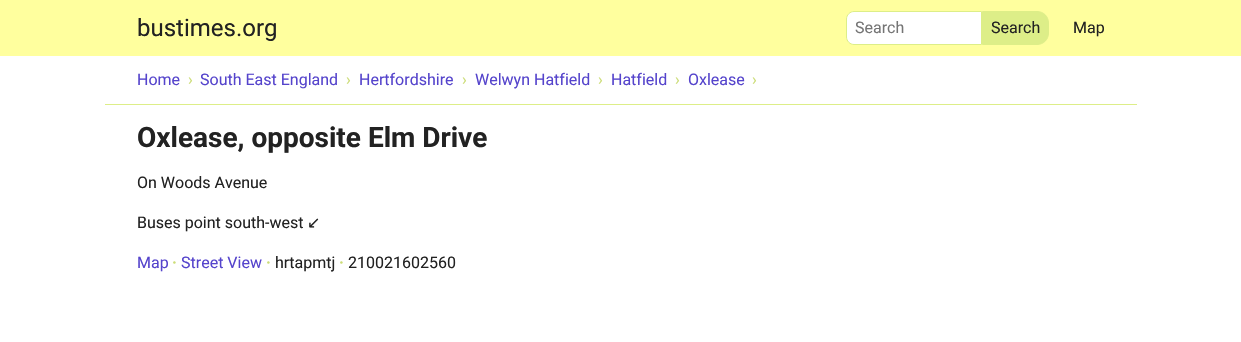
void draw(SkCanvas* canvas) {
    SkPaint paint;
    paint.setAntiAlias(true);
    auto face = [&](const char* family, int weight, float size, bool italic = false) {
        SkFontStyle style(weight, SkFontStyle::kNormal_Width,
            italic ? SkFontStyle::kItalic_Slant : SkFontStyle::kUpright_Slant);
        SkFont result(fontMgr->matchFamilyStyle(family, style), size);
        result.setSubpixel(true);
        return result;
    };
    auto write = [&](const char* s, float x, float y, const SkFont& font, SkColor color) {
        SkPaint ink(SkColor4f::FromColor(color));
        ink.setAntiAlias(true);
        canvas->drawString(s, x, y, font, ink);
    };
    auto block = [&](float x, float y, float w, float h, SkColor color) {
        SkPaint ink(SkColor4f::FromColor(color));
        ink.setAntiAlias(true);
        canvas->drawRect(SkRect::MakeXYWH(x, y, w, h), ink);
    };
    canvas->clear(SK_ColorWHITE);
    block(0, 0, 1241, 56, SkColorSetRGB(255, 255, 158));
    auto kFont1 = face("Roboto", 400, 24);
    write("bustimes.org", 137, 36, kFont1, SkColorSetRGB(34, 34, 34));
    paint.setColor(SK_ColorWHITE);
    canvas->drawPath(SkPathBuilder().moveTo(854, 11.5f).lineTo(981.5f, 11.5f).lineTo(981.5f, 44.5f).lineTo(854, 44.5f).cubicTo(850, 44.5f, 846.5f, 41, 846.5f, 37).lineTo(846.5f, 19).cubicTo(846.5f, 15, 850, 11.5f, 854, 11.5f).close().detach(), paint);
    paint.setStyle(SkPaint::kStroke_Style);
    paint.setStrokeWidth(1);
    paint.setColor(SkColorSetRGB(221, 238, 136));
    canvas->drawPath(SkPathBuilder().moveTo(854, 11.5f).lineTo(981.5f, 11.5f).lineTo(981.5f, 44.5f).lineTo(854, 44.5f).cubicTo(850, 44.5f, 846.5f, 41, 846.5f, 37).lineTo(846.5f, 19).cubicTo(846.5f, 15, 850, 11.5f, 854, 11.5f).close().detach(), paint);
    auto kFont2 = face("Roboto", 400, 16);
    write("Search", 855, 33, kFont2, SkColorSetRGB(117, 117, 117));
    paint.setStyle(SkPaint::kFill_Style);
    canvas->drawPath(SkPathBuilder().moveTo(982.5f, 11.5f).lineTo(1037, 11.5f).cubicTo(1043.5f, 11.5f, 1048.5f, 16.5f, 1048.5f, 23).lineTo(1048.5f, 33).cubicTo(1048.5f, 39.5f, 1043.5f, 44.5f, 1037, 44.5f).lineTo(982.5f, 44.5f).close().detach(), paint);
    paint.setStyle(SkPaint::kStroke_Style);
    canvas->drawPath(SkPathBuilder().moveTo(982.5f, 11.5f).lineTo(1037, 11.5f).cubicTo(1043.5f, 11.5f, 1048.5f, 16.5f, 1048.5f, 23).lineTo(1048.5f, 33).cubicTo(1048.5f, 39.5f, 1043.5f, 44.5f, 1037, 44.5f).lineTo(982.5f, 44.5f).close().detach(), paint);
    write("Search", 991, 33, kFont2, SkColorSetRGB(34, 34, 34));
    write("Map", 1073, 33, kFont2, SkColorSetRGB(34, 34, 34));
    block(105, 104, 1032, 1, SkColorSetRGB(221, 238, 136));
    write("Home", 137, 85, kFont2, SkColorSetRGB(85, 68, 204));
    write("›", 188, 85, kFont2, SkColorSetRGB(204, 221, 119));
    write("South East England", 200, 85, kFont2, SkColorSetRGB(85, 68, 204));
    write("›", 346, 85, kFont2, SkColorSetRGB(204, 221, 119));
    write("Hertfordshire", 359, 85, kFont2, SkColorSetRGB(85, 68, 204));
    write("›", 462, 85, kFont2, SkColorSetRGB(204, 221, 119));
    write("Welwyn Hatfield", 475, 85, kFont2, SkColorSetRGB(85, 68, 204));
    write("›", 598, 85, kFont2, SkColorSetRGB(204, 221, 119));
    write("Hatfield", 611, 85, kFont2, SkColorSetRGB(85, 68, 204));
    write("›", 675, 85, kFont2, SkColorSetRGB(204, 221, 119));
    write("Oxlease", 688, 85, kFont2, SkColorSetRGB(85, 68, 204));
    write("›", 752, 85, kFont2, SkColorSetRGB(204, 221, 119));
    auto kFont3 = face("Roboto", 700, 28);
    write("Oxlease, opposite Elm Drive", 137, 147, kFont3, SkColorSetRGB(34, 34, 34));
    write("On Woods Avenue", 137, 188, kFont2, SkColorSetRGB(34, 34, 34));
    write("Buses point south-west", 137, 228, kFont2, SkColorSetRGB(34, 34, 34));
    auto kFont4 = face("DejaVu Sans", 400, 16);
    write("↙", 307, 228, kFont4, SkColorSetRGB(34, 34, 34));
    write("Map", 137, 268, kFont2, SkColorSetRGB(85, 68, 204));
    auto kFont5 = face("Roboto", 700, 16);
    write("·", 172, 268, kFont5, SkColorSetRGB(204, 221, 119));
    write("Street View", 181, 268, kFont2, SkColorSetRGB(85, 68, 204));
    write("·", 266, 268, kFont5, SkColorSetRGB(204, 221, 119));
    write("hrtapmtj", 275, 268, kFont2, SkColorSetRGB(34, 34, 34));
    write("·", 339, 268, kFont5, SkColorSetRGB(204, 221, 119));
    write("210021602560", 348, 268, kFont2, SkColorSetRGB(34, 34, 34));
}
